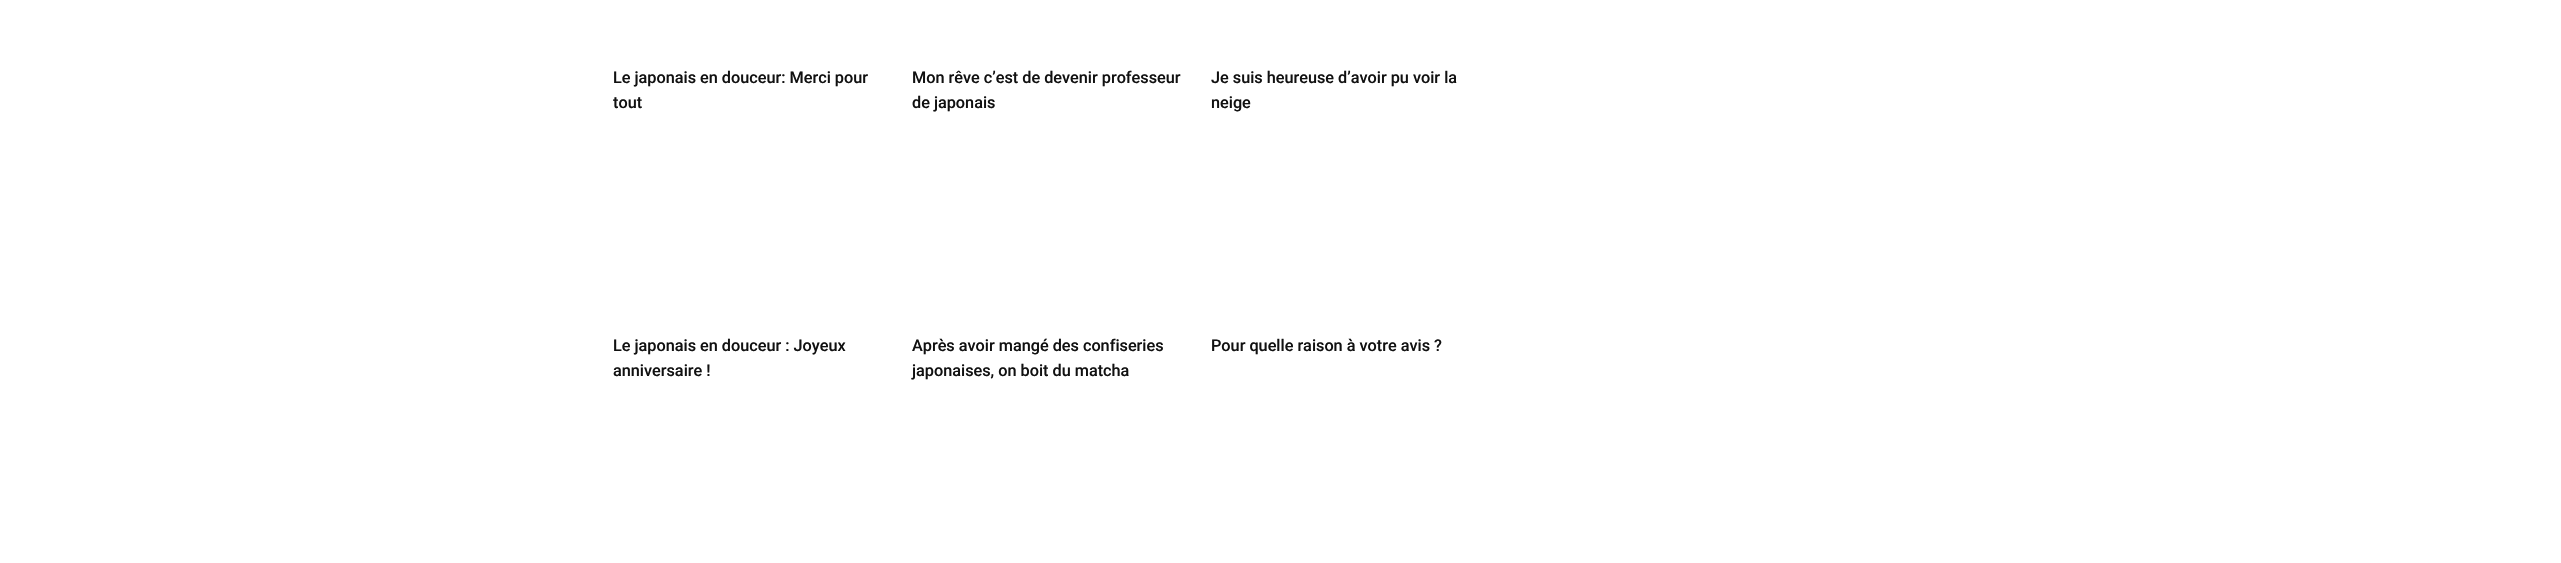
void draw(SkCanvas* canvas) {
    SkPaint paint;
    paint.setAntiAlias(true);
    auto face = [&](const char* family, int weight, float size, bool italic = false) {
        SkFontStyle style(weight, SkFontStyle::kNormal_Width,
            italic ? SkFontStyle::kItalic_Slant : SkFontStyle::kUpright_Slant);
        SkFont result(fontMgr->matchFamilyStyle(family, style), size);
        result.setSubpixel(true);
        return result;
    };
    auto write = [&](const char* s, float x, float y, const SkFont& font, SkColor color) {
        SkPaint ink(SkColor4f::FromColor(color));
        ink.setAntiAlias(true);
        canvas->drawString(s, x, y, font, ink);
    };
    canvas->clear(SK_ColorWHITE);
    auto kFont1 = face("Roboto", 500, 16.25f);
    write("Le japonais en douceur: Merci pour", 613, 83, kFont1, SkColorSetRGB(17, 17, 17));
    write("tout", 613, 108, kFont1, SkColorSetRGB(17, 17, 17));
    write("Mon rêve c’est de devenir professeur", 912, 83, kFont1, SkColorSetRGB(17, 17, 17));
    write("de japonais", 912, 108, kFont1, SkColorSetRGB(17, 17, 17));
    write("Je suis heureuse d’avoir pu voir la", 1211, 83, kFont1, SkColorSetRGB(17, 17, 17));
    write("neige", 1211, 108, kFont1, SkColorSetRGB(17, 17, 17));
    write("Le japonais en douceur : Joyeux", 613, 351, kFont1, SkColorSetRGB(17, 17, 17));
    write("anniversaire !", 613, 376, kFont1, SkColorSetRGB(17, 17, 17));
    write("Après avoir mangé des confiseries", 912, 351, kFont1, SkColorSetRGB(17, 17, 17));
    write("japonaises, on boit du matcha", 912, 376, kFont1, SkColorSetRGB(17, 17, 17));
    write("Pour quelle raison à votre avis ?", 1211, 351, kFont1, SkColorSetRGB(17, 17, 17));
}
